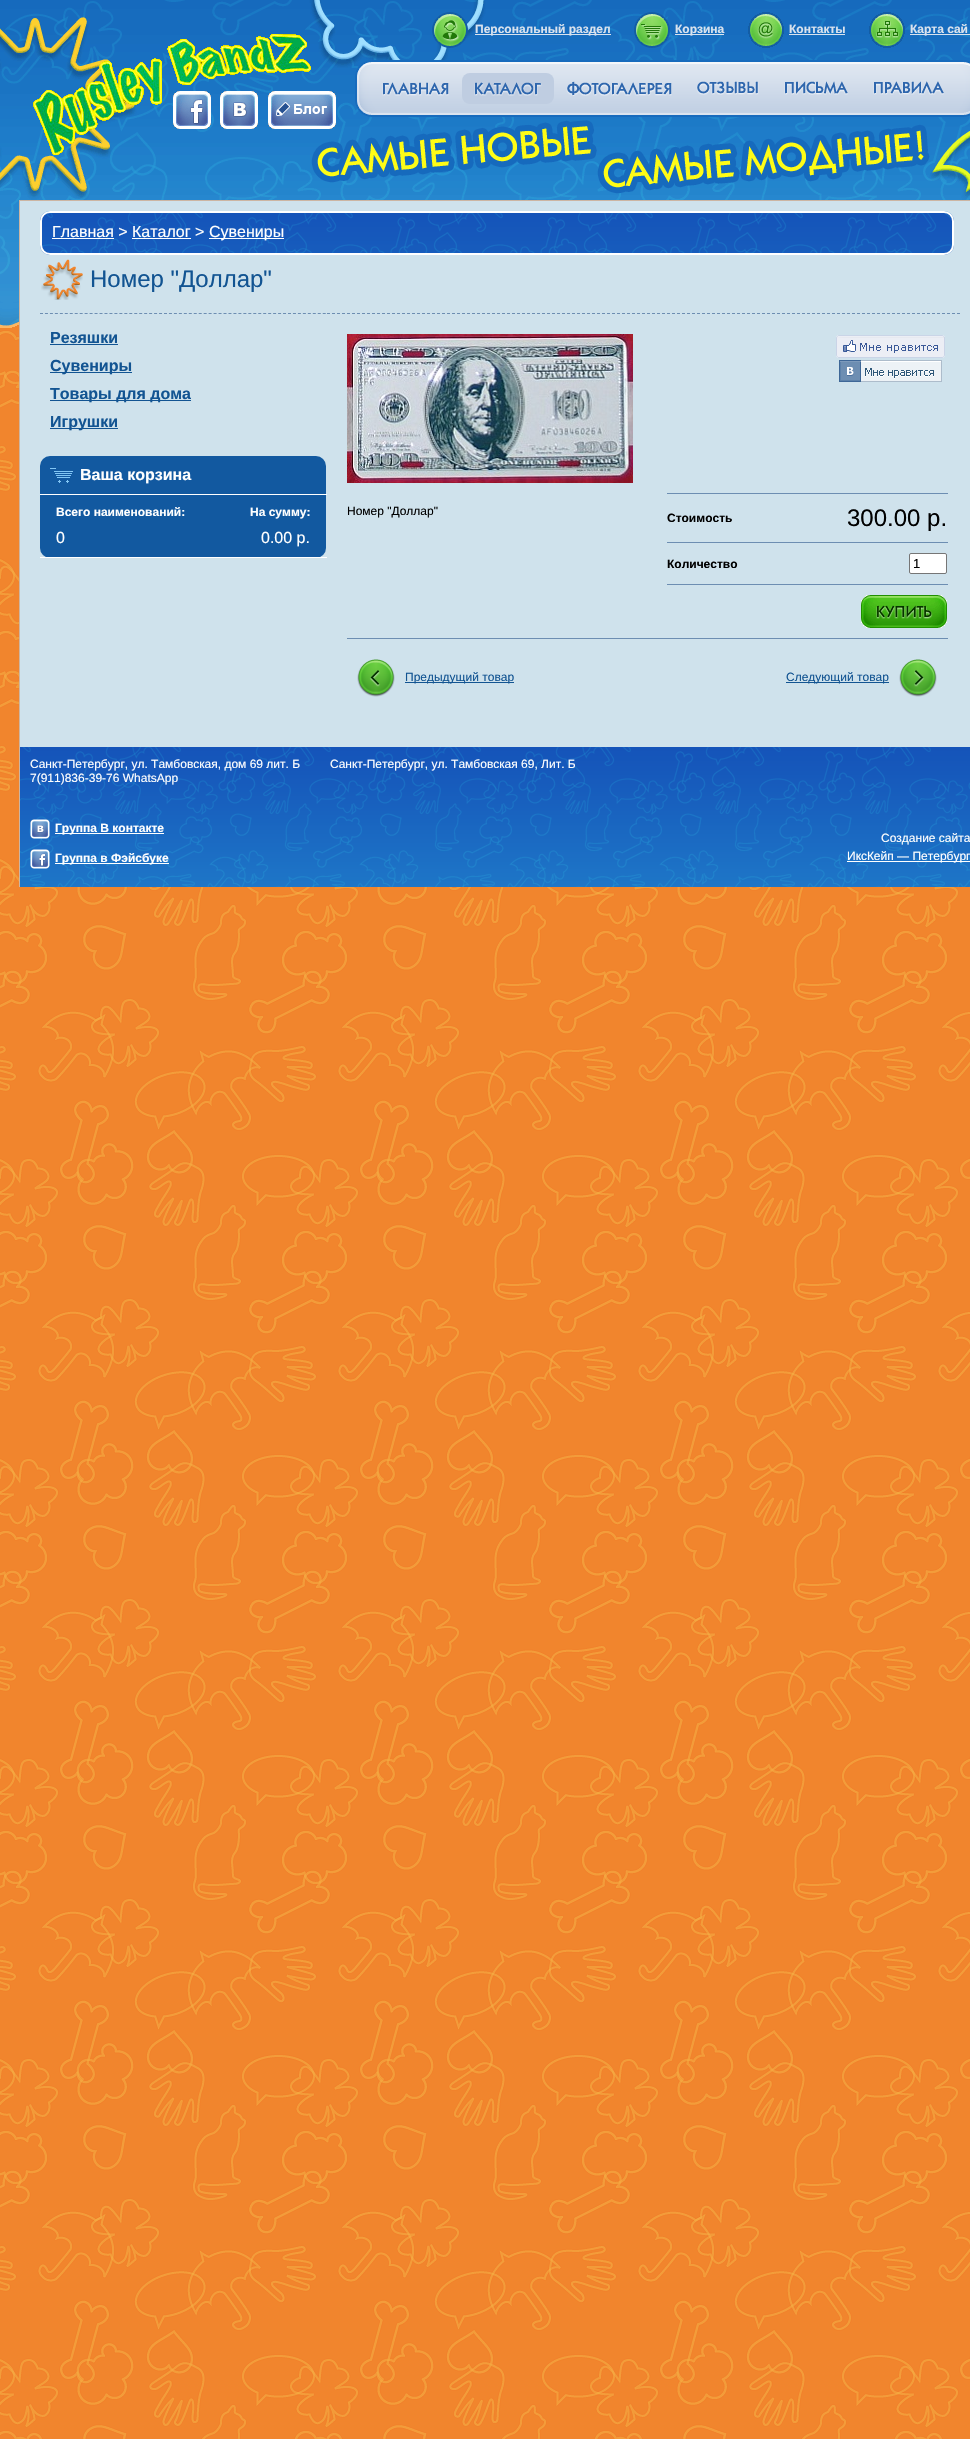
void draw(SkCanvas* canvas) {
    SkPaint paint;
    paint.setAntiAlias(true);
    auto face = [&](const char* family, int weight, float size, bool italic = false) {
        SkFontStyle style(weight, SkFontStyle::kNormal_Width,
            italic ? SkFontStyle::kItalic_Slant : SkFontStyle::kUpright_Slant);
        SkFont result(fontMgr->matchFamilyStyle(family, style), size);
        result.setSubpixel(true);
        return result;
    };
    auto write = [&](const char* s, float x, float y, const SkFont& font, SkColor color) {
        SkPaint ink(SkColor4f::FromColor(color));
        ink.setAntiAlias(true);
        canvas->drawString(s, x, y, font, ink);
    };
    auto block = [&](float x, float y, float w, float h, SkColor color) {
        SkPaint ink(SkColor4f::FromColor(color));
        ink.setAntiAlias(true);
        canvas->drawRect(SkRect::MakeXYWH(x, y, w, h), ink);
    };
    auto card = [&](float x, float y, float w, float h, float radius, SkColor color) {
        SkPaint ink(SkColor4f::FromColor(color));
        ink.setAntiAlias(true);
        canvas->drawRoundRect(SkRect::MakeXYWH(x, y, w, h), radius, radius, ink);
    };
    auto paste = [&](const char* path, float x, float y, float w, float h) {
        auto image = SkImages::DeferredFromEncodedData(SkData::MakeFromFileName(path));
        canvas->drawImageRect(image, SkRect::MakeXYWH(x, y, w, h), SkSamplingOptions());
    };
    canvas->clear(SK_ColorWHITE);
    paste("pic1.png", 0, 325, 970, 2114);
    paste("pic2.png", 0, 0, 970, 328);
    paste("pic3.png", 432, 12, 36, 36);
    block(475, 34, 136, 1, SkColorSetRGB(218, 227, 238));
    auto kFont1 = face("Liberation Sans", 700, 12);
    write("Персональный раздел", 475, 33, kFont1, SkColorSetRGB(218, 227, 238));
    paste("pic4.png", 634, 12, 36, 36);
    block(675, 34, 49, 1, SkColorSetRGB(218, 227, 238));
    write("Корзина", 675, 33, kFont1, SkColorSetRGB(218, 227, 238));
    paste("pic5.png", 748, 12, 36, 36);
    write("Контакты", 789, 33, kFont1, SkColorSetRGB(218, 227, 238));
    block(789, 34, 56, 1, SkColorSetRGB(218, 227, 238));
    paste("pic6.png", 869, 12, 36, 36);
    block(910, 34, 60, 1, SkColorSetRGB(218, 227, 238));
    write("Карта сай", 910, 33, kFont1, SkColorSetRGB(218, 227, 238));
    paste("pic7.png", 33, 34, 278, 121);
    paste("pic8.png", 355, 60, 615, 57);
    paste("pic9.png", 382, 82, 67, 14);
    card(462, 73, 92, 31, 8, SkColorSetRGB(191, 205, 225));
    paste("pic10.png", 474, 82, 68, 14);
    paste("pic11.png", 566, 81, 106, 15);
    paste("pic12.png", 696, 81, 63, 14);
    paste("pic13.png", 784, 81, 64, 14);
    paste("pic14.png", 873, 81, 71, 14);
    paste("pic15.png", 173, 91, 38, 38);
    paste("pic16.png", 220, 91, 38, 38);
    paste("pic17.png", 268, 91, 68, 38);
    paste("pic18.png", 311, 120, 619, 74);
    block(20, 201, 950, 546, SkColorSetRGB(207, 226, 236));
    block(19, 200, 951, 1, SkColorSetRGB(204, 181, 162));
    block(19, 200, 1, 687, SkColorSetRGB(204, 181, 162));
    paste("pic19.png", 40, 211, 914, 44);
    paint.setStyle(SkPaint::kStroke_Style);
    paint.setStrokeWidth(2);
    paint.setColor(SK_ColorWHITE);
    canvas->drawRoundRect(SkRect::MakeXYWH(41, 212, 912, 42), 9, 9, paint);
    auto kFont2 = face("Liberation Sans", 400, 16);
    write("Главная > Каталог >", 52, 237, kFont2, SK_ColorWHITE);
    block(52, 238, 62, 1, SK_ColorWHITE);
    block(209, 238, 75, 1, SK_ColorWHITE);
    write("Сувениры", 209, 237, kFont2, SK_ColorWHITE);
    block(132, 238, 59, 1, SK_ColorWHITE);
    paste("pic20.png", 41, 259, 42, 41);
    auto kFont3 = face("Liberation Sans", 400, 24);
    write("Номер \"Доллар\"", 90, 287, kFont3, SkColorSetRGB(18, 84, 146));
    paint.setStrokeWidth(1);
    paint.setColor(SkColorSetRGB(109, 142, 178));
    paint.setPathEffect(SkDashPathEffect::Make({{3, 1.96f}}, 0));
    canvas->drawPath(SkPathBuilder().moveTo(40, 313.5f).lineTo(326, 313.5f).detach(), paint);
    paint.setPathEffect(nullptr);
    auto kFont4 = face("Liberation Sans", 700, 16);
    write("Резяшки", 50, 343, kFont4, SkColorSetRGB(18, 84, 146));
    block(50, 344, 68, 1, SkColorSetRGB(18, 84, 146));
    block(50, 372, 82, 1, SkColorSetRGB(18, 84, 146));
    write("Сувениры", 50, 371, kFont4, SkColorSetRGB(18, 84, 146));
    block(50, 400, 141, 1, SkColorSetRGB(18, 84, 146));
    write("Товары для дома", 50, 399, kFont4, SkColorSetRGB(18, 84, 146));
    block(50, 428, 68, 1, SkColorSetRGB(18, 84, 146));
    write("Игрушки", 50, 427, kFont4, SkColorSetRGB(18, 84, 146));
    card(40, 456, 286, 102, 10, SkColorSetRGB(18, 89, 160));
    paste("pic21.png", 50, 468, 23, 15);
    write("Ваша корзина", 80, 480, kFont4, SK_ColorWHITE);
    write("Всего наименований:", 56, 516, kFont1, SK_ColorWHITE);
    write("0", 56, 543, kFont2, SK_ColorWHITE);
    block(40, 494, 287, 1, SK_ColorWHITE);
    block(40, 557, 287, 1, SK_ColorWHITE);
    write("На сумму:", 250, 516, kFont1, SK_ColorWHITE);
    write("0.00 р.", 261, 543, kFont2, SK_ColorWHITE);
    paint.setPathEffect(SkDashPathEffect::Make({{3, 2}}, 0));
    canvas->drawPath(SkPathBuilder().moveTo(327, 313.5f).lineTo(960, 313.5f).detach(), paint);
    paint.setPathEffect(nullptr);
    paste("pic22.png", 347, 334, 286, 149);
    paste("pic23.png", 836, 335, 109, 23);
    paste("pic24.png", 839, 360, 103, 22);
    auto kFont5 = face("Liberation Sans", 400, 12);
    write("Номер \"Доллар\"", 347, 515, kFont5, SK_ColorBLACK);
    write("Стоимость", 667, 522, kFont1, SK_ColorBLACK);
    block(667, 493, 281, 1, SkColorSetRGB(109, 142, 178));
    write("300.00 р.", 847, 526, kFont3, SK_ColorBLACK);
    write("Количество", 667, 568, kFont1, SK_ColorBLACK);
    block(667, 542, 281, 1, SkColorSetRGB(109, 142, 178));
    paint.setStyle(SkPaint::kFill_Style);
    paint.setColor(SK_ColorWHITE);
    canvas->drawRoundRect(SkRect::MakeXYWH(909.5f, 553.5f, 37, 20), 1.5f, 1.5f, paint);
    paint.setStyle(SkPaint::kStroke_Style);
    paint.setColor(SkColorSetRGB(118, 118, 118));
    canvas->drawRoundRect(SkRect::MakeXYWH(909.5f, 553.5f, 37, 20), 1.5f, 1.5f, paint);
    auto kFont6 = face("Liberation Sans", 400, 13);
    write("1", 913, 568, kFont6, SK_ColorBLACK);
    block(667, 584, 281, 1, SkColorSetRGB(109, 142, 178));
    paste("pic25.png", 861, 595, 86, 33);
    paste("pic26.png", 357, 659, 38, 38);
    block(405, 682, 109, 1, SkColorSetRGB(18, 84, 146));
    write("Предыдущий товар", 405, 681, kFont5, SkColorSetRGB(18, 84, 146));
    block(347, 638, 601, 1, SkColorSetRGB(109, 142, 178));
    block(786, 682, 103, 1, SkColorSetRGB(18, 84, 146));
    write("Следующий товар", 786, 681, kFont5, SkColorSetRGB(18, 84, 146));
    paste("pic27.png", 899, 659, 38, 38);
    paste("pic28.png", 20, 747, 950, 140);
    write("Санкт-Петербург, ул. Тамбовская, дом 69 лит. Б", 30, 768, kFont5, SK_ColorWHITE);
    write("7(911)836-39-76 WhatsApp", 30, 782, kFont5, SK_ColorWHITE);
    paste("pic29.png", 30, 819, 20, 20);
    block(55, 833, 109, 1, SK_ColorWHITE);
    write("Группа В контакте", 55, 832, kFont1, SK_ColorWHITE);
    paste("pic30.png", 30, 849, 20, 20);
    block(55, 863, 114, 1, SK_ColorWHITE);
    write("Группа в Фэйсбуке", 55, 862, kFont1, SK_ColorWHITE);
    write("Санкт-Петербург, ул. Тамбовская 69, Лит. Б", 330, 768, kFont5, SK_ColorWHITE);
    write("Создание сайта", 881, 842, kFont5, SK_ColorWHITE);
    block(847, 861, 123, 1, SK_ColorWHITE);
    write("ИксКейп — Петербург", 847, 860, kFont5, SK_ColorWHITE);
}
